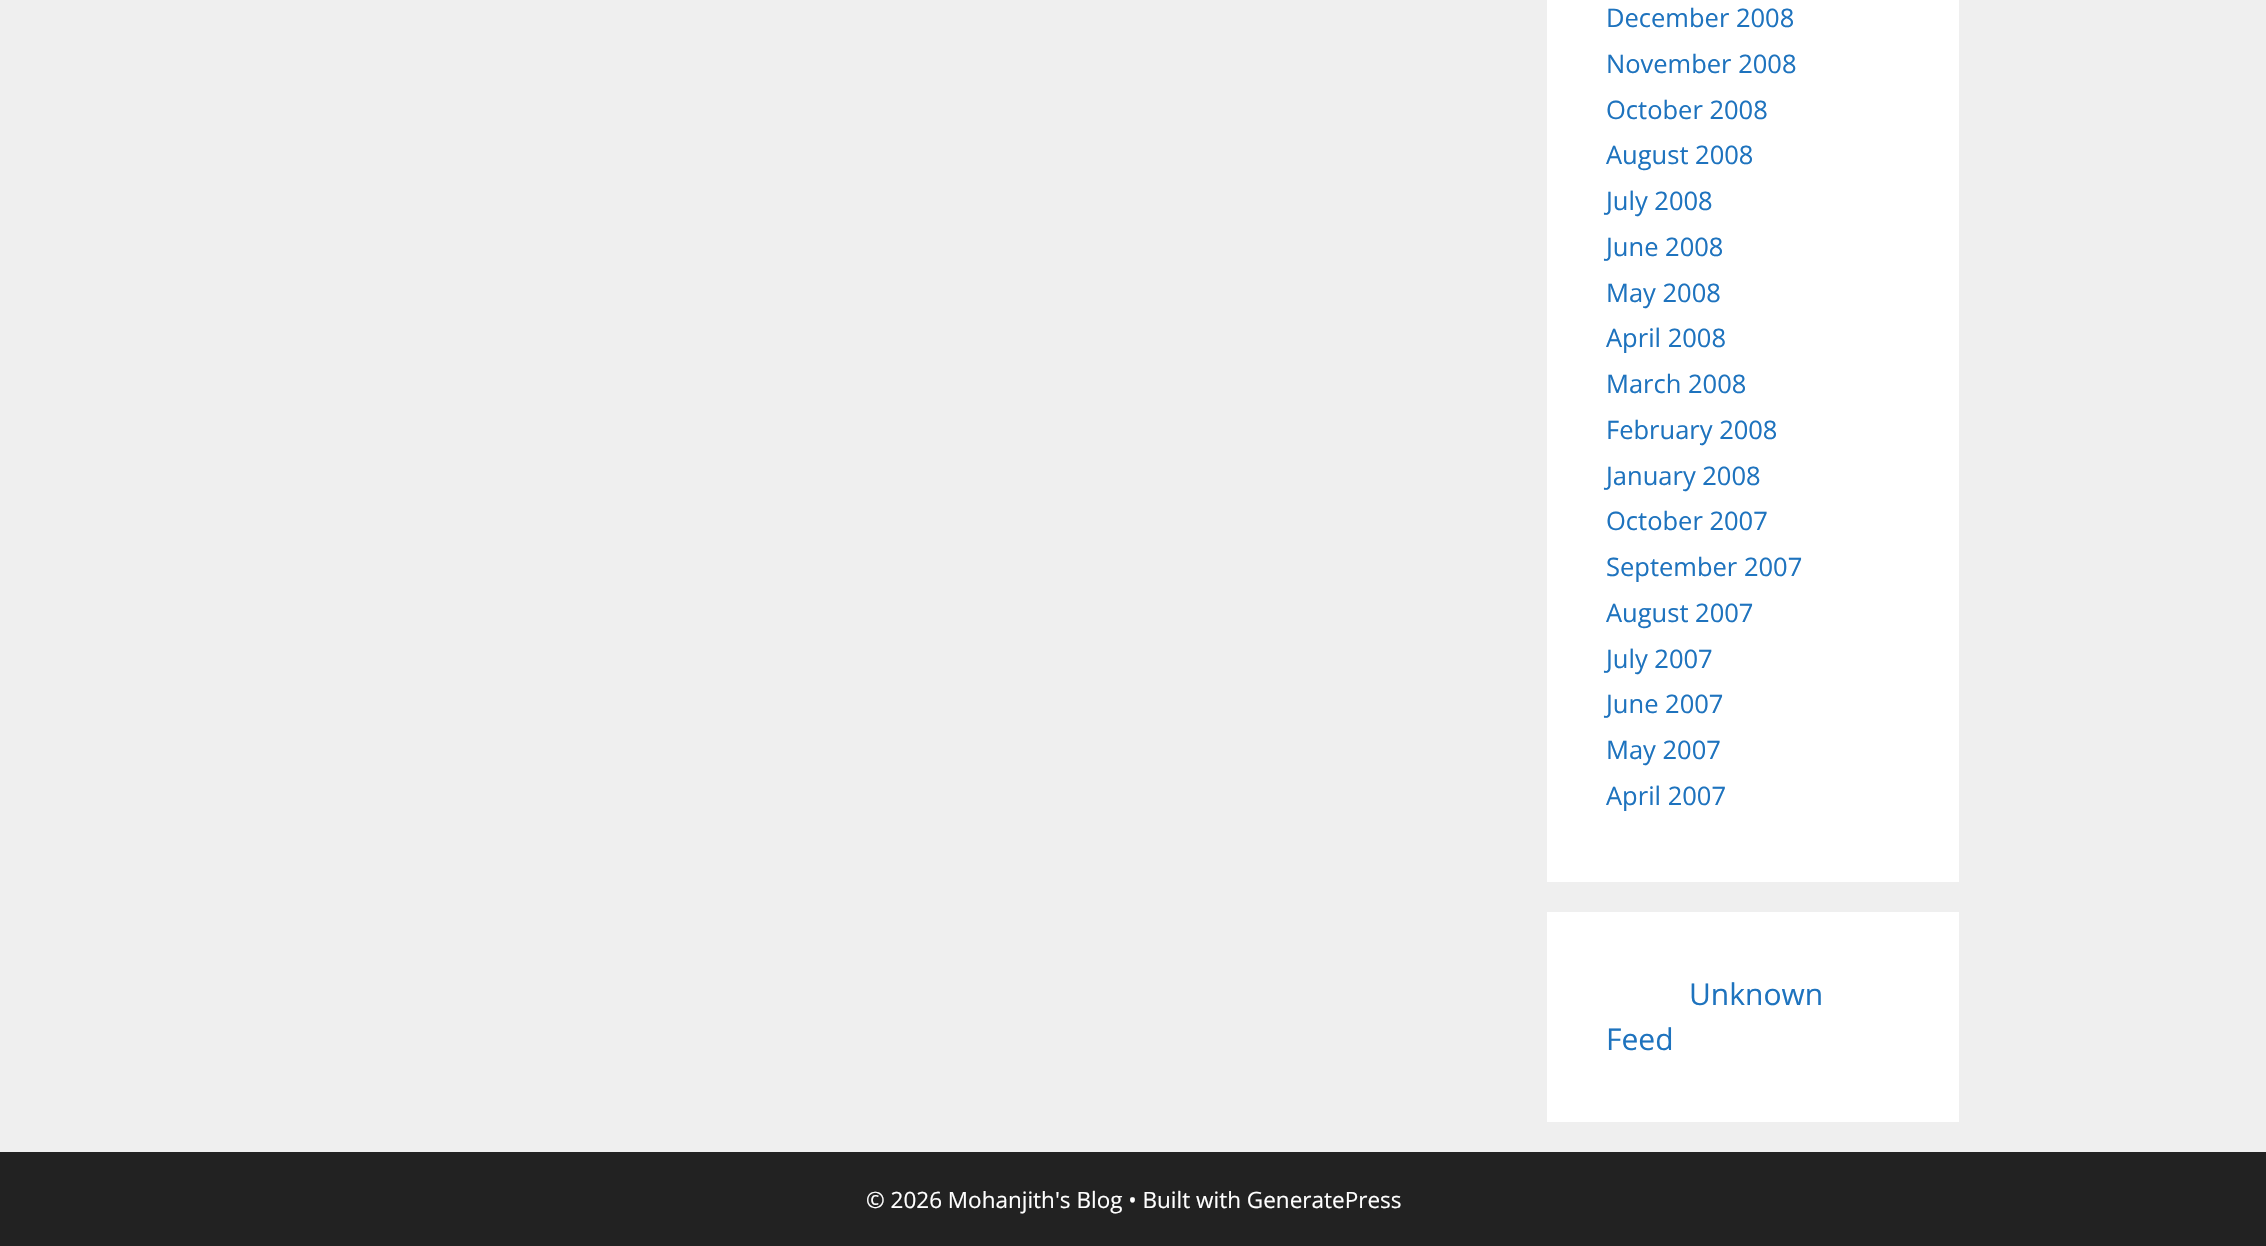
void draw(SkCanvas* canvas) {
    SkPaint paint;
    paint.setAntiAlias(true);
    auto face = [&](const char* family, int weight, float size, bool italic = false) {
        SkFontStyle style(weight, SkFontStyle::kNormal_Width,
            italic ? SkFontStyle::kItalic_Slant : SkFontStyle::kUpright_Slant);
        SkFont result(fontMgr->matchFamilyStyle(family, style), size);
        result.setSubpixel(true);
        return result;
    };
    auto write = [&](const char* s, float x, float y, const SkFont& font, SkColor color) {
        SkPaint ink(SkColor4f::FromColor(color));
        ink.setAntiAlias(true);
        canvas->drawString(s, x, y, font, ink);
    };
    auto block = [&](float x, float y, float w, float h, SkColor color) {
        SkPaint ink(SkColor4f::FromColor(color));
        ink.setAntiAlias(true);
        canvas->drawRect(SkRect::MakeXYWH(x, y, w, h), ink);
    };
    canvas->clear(SkColorSetRGB(239, 239, 239));
    block(1547, 0, 412, 882, SK_ColorWHITE);
    auto kFont1 = face("Open Sans", 400, 25.5f);
    write("December 2008", 1606, 27, kFont1, SkColorSetRGB(30, 115, 190));
    write("November 2008", 1606, 73, kFont1, SkColorSetRGB(30, 115, 190));
    write("October 2008", 1606, 119, kFont1, SkColorSetRGB(30, 115, 190));
    write("August 2008", 1606, 164, kFont1, SkColorSetRGB(30, 115, 190));
    write("July 2008", 1606, 210, kFont1, SkColorSetRGB(30, 115, 190));
    write("June 2008", 1606, 256, kFont1, SkColorSetRGB(30, 115, 190));
    write("May 2008", 1606, 302, kFont1, SkColorSetRGB(30, 115, 190));
    write("April 2008", 1606, 347, kFont1, SkColorSetRGB(30, 115, 190));
    write("March 2008", 1606, 393, kFont1, SkColorSetRGB(30, 115, 190));
    write("February 2008", 1606, 439, kFont1, SkColorSetRGB(30, 115, 190));
    write("January 2008", 1606, 485, kFont1, SkColorSetRGB(30, 115, 190));
    write("October 2007", 1606, 530, kFont1, SkColorSetRGB(30, 115, 190));
    write("September 2007", 1606, 576, kFont1, SkColorSetRGB(30, 115, 190));
    write("August 2007", 1606, 622, kFont1, SkColorSetRGB(30, 115, 190));
    write("July 2007", 1606, 668, kFont1, SkColorSetRGB(30, 115, 190));
    write("June 2007", 1606, 713, kFont1, SkColorSetRGB(30, 115, 190));
    write("May 2007", 1606, 759, kFont1, SkColorSetRGB(30, 115, 190));
    write("April 2007", 1606, 805, kFont1, SkColorSetRGB(30, 115, 190));
    block(1547, 912, 412, 210, SK_ColorWHITE);
    auto kFont2 = face("Open Sans", 400, 30);
    write("Unknown", 1689, 1005, kFont2, SkColorSetRGB(30, 115, 190));
    write("Feed", 1606, 1050, kFont2, SkColorSetRGB(30, 115, 190));
    block(0, 1152, 2266, 94, SkColorSetRGB(34, 34, 34));
    auto kFont3 = face("Open Sans", 400, 22.5f);
    write("© 2026 Mohanjith's Blog • Built with GeneratePress", 866, 1208, kFont3, SK_ColorWHITE);
}
